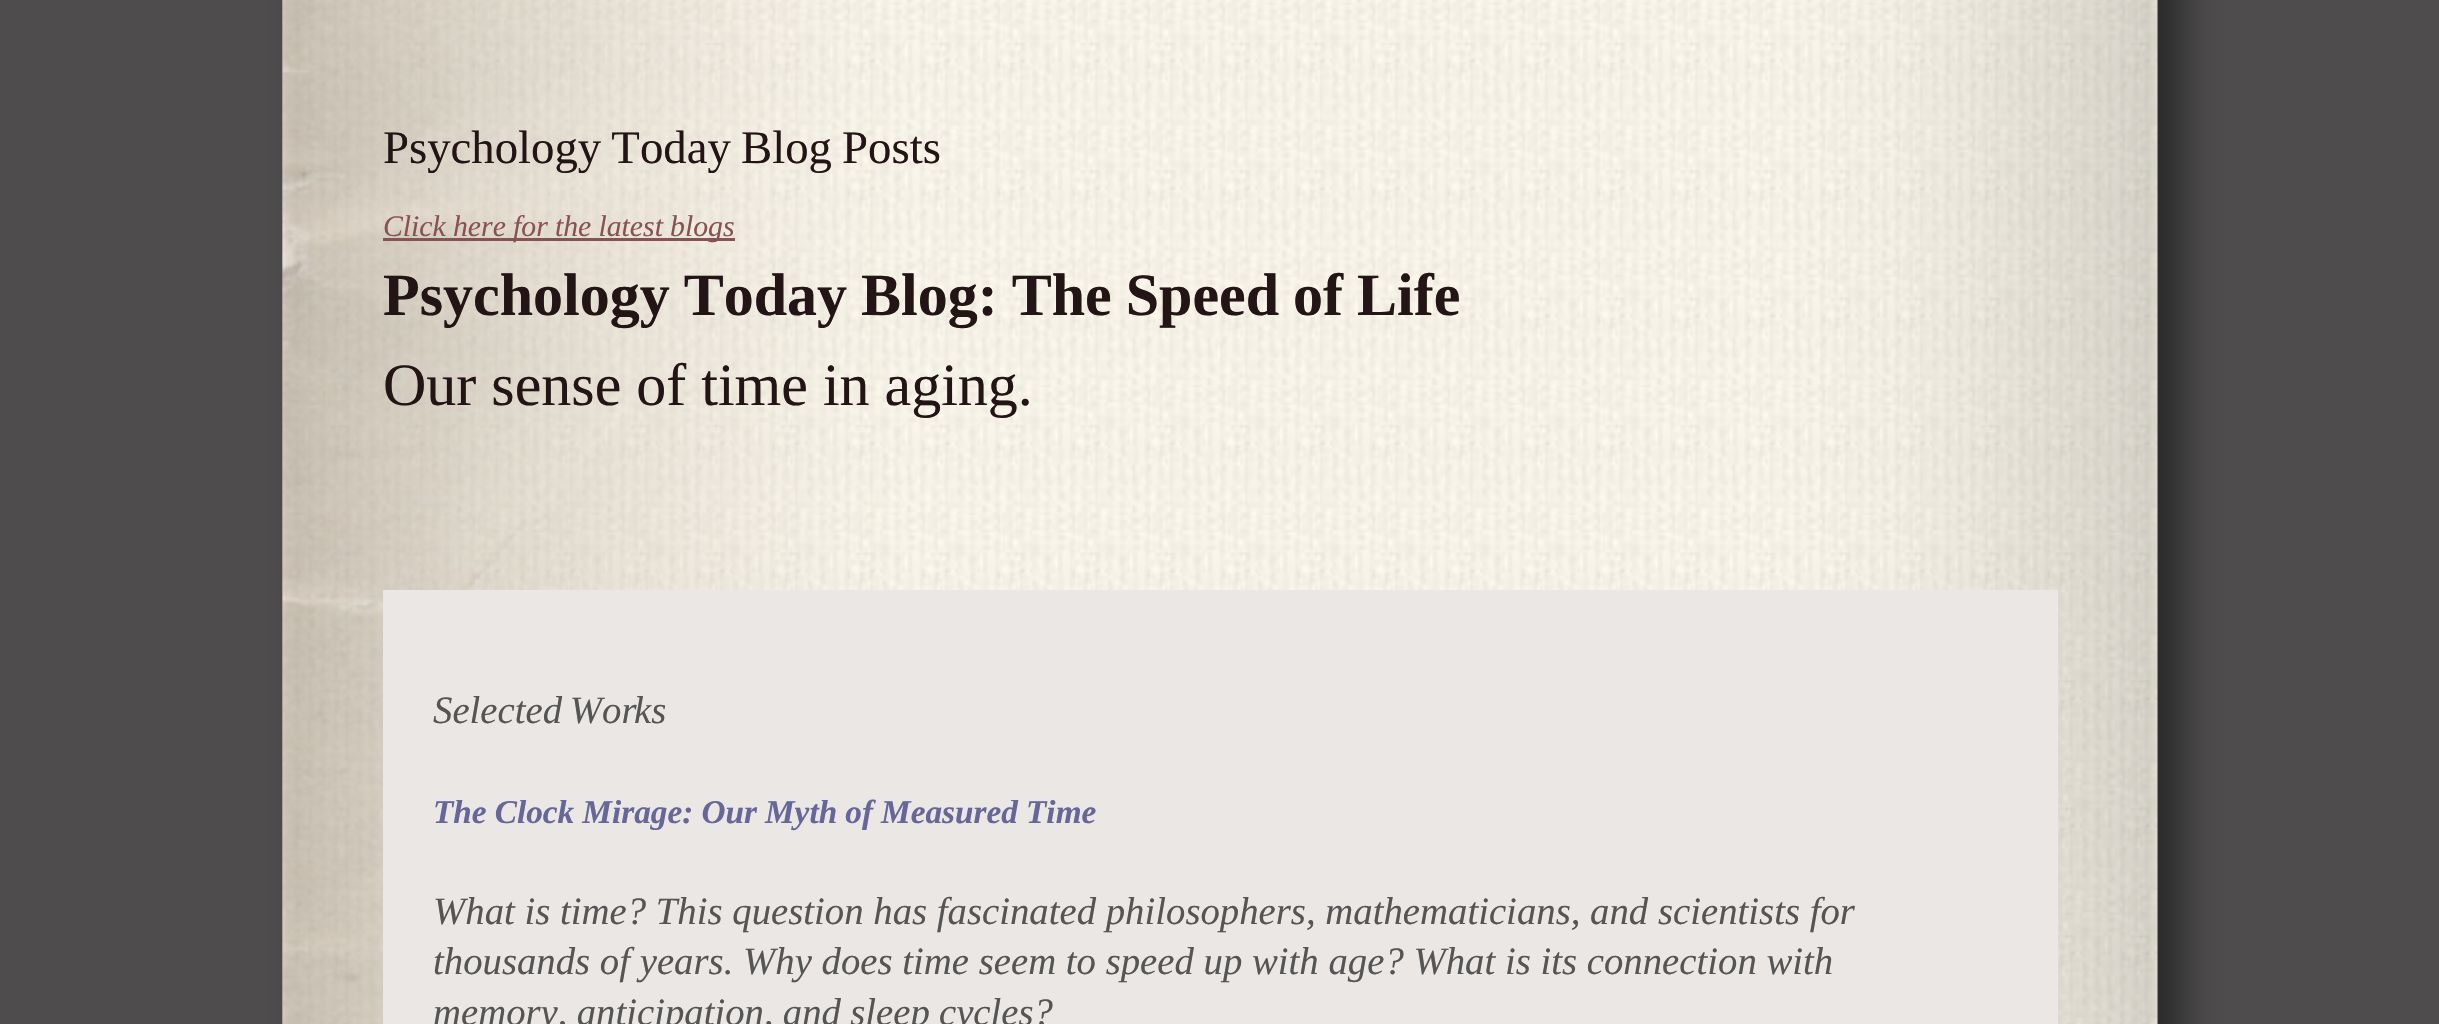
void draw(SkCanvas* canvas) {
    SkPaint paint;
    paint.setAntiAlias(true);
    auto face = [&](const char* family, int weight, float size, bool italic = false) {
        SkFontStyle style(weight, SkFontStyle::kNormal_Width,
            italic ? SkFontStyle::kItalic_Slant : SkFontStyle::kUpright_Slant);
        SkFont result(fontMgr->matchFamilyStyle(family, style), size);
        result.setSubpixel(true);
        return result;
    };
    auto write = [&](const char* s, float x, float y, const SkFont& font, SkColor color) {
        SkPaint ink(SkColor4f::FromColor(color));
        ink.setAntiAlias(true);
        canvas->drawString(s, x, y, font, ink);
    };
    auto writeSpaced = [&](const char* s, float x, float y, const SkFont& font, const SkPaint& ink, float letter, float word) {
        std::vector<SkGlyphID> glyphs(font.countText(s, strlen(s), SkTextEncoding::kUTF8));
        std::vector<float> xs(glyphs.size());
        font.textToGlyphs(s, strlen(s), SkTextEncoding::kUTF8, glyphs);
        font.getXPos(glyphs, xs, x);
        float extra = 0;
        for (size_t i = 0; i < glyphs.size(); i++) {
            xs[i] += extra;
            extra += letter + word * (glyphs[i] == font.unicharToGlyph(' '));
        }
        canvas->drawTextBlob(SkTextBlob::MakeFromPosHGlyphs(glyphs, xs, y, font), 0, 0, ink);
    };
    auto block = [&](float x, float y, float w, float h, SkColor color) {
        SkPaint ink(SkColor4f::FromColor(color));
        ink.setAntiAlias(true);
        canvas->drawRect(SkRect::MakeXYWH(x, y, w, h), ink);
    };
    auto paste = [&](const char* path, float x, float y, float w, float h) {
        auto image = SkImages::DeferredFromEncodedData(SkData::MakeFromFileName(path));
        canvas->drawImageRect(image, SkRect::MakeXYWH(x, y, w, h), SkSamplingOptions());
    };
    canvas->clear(SkColorSetRGB(78, 76, 76));
    paint.setColor(SkColorSetARGB(117, 0, 0, 0));
    paint.setMaskFilter(SkMaskFilter::MakeBlur(kNormal_SkBlurStyle, 17.5f));
    canvas->drawRect(SkRect::MakeXYWH(308, -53, 1875, 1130), paint);
    paint.setMaskFilter(nullptr);
    paste("pic1.png", 282, 0, 1876, 1024);
    auto kFont1 = face("Liberation Serif", 400, 46.75f);
    paint.setColor(SkColorSetRGB(35, 21, 21));
    writeSpaced("Psychology Today Blog Posts", 383, 163, kFont1, paint, 0, -1.5f);
    block(383, 238, 352, 3, SkColorSetRGB(135, 82, 82));
    auto kFont2 = face("Liberation Serif", 400, 29.75f, true);
    paint.setColor(SkColorSetRGB(135, 82, 82));
    writeSpaced("Click here for the latest blogs", 383, 236, kFont2, paint, 0, -0.25f);
    auto kFont3 = face("Liberation Serif", 700, 60);
    paint.setColor(SkColorSetRGB(35, 21, 21));
    writeSpaced("Psychology Today Blog: The Speed of Life", 383, 315, kFont3, paint, 0, -1);
    auto kFont4 = face("Liberation Serif", 400, 60);
    write("Our sense of time in aging.", 383, 405, kFont4, SkColorSetRGB(35, 21, 21));
    block(383, 590, 1675, 434, SkColorSetRGB(235, 231, 228));
    auto kFont5 = face("Liberation Serif", 400, 38.75f, true);
    paint.setColor(SkColorSetRGB(85, 85, 85));
    writeSpaced("Selected Wor", 433, 723, kFont5, paint, 0, -2);
    write("ks", 634, 723, kFont5, SkColorSetRGB(85, 85, 85));
    auto kFont6 = face("Liberation Serif", 700, 33.3f, true);
    paint.setColor(SkColorSetRGB(102, 102, 153));
    writeSpaced("The Clock Mirage: Our Myth of Measured Time", 433, 823, kFont6, paint, 0, -0.25f);
    write("What is time? This question has fascinated philosophers, mathematicians, and scientists for", 433, 924, kFont5, SkColorSetRGB(85, 85, 85));
    write("thousands of years. Why does time seem to speed up with age? What is its connection with", 433, 974, kFont5, SkColorSetRGB(85, 85, 85));
    paint.setColor(SkColorSetRGB(85, 85, 85));
    writeSpaced("memory, anticipation, and sleep cycles?", 433, 1025, kFont5, paint, 0, -0.5f);
}
